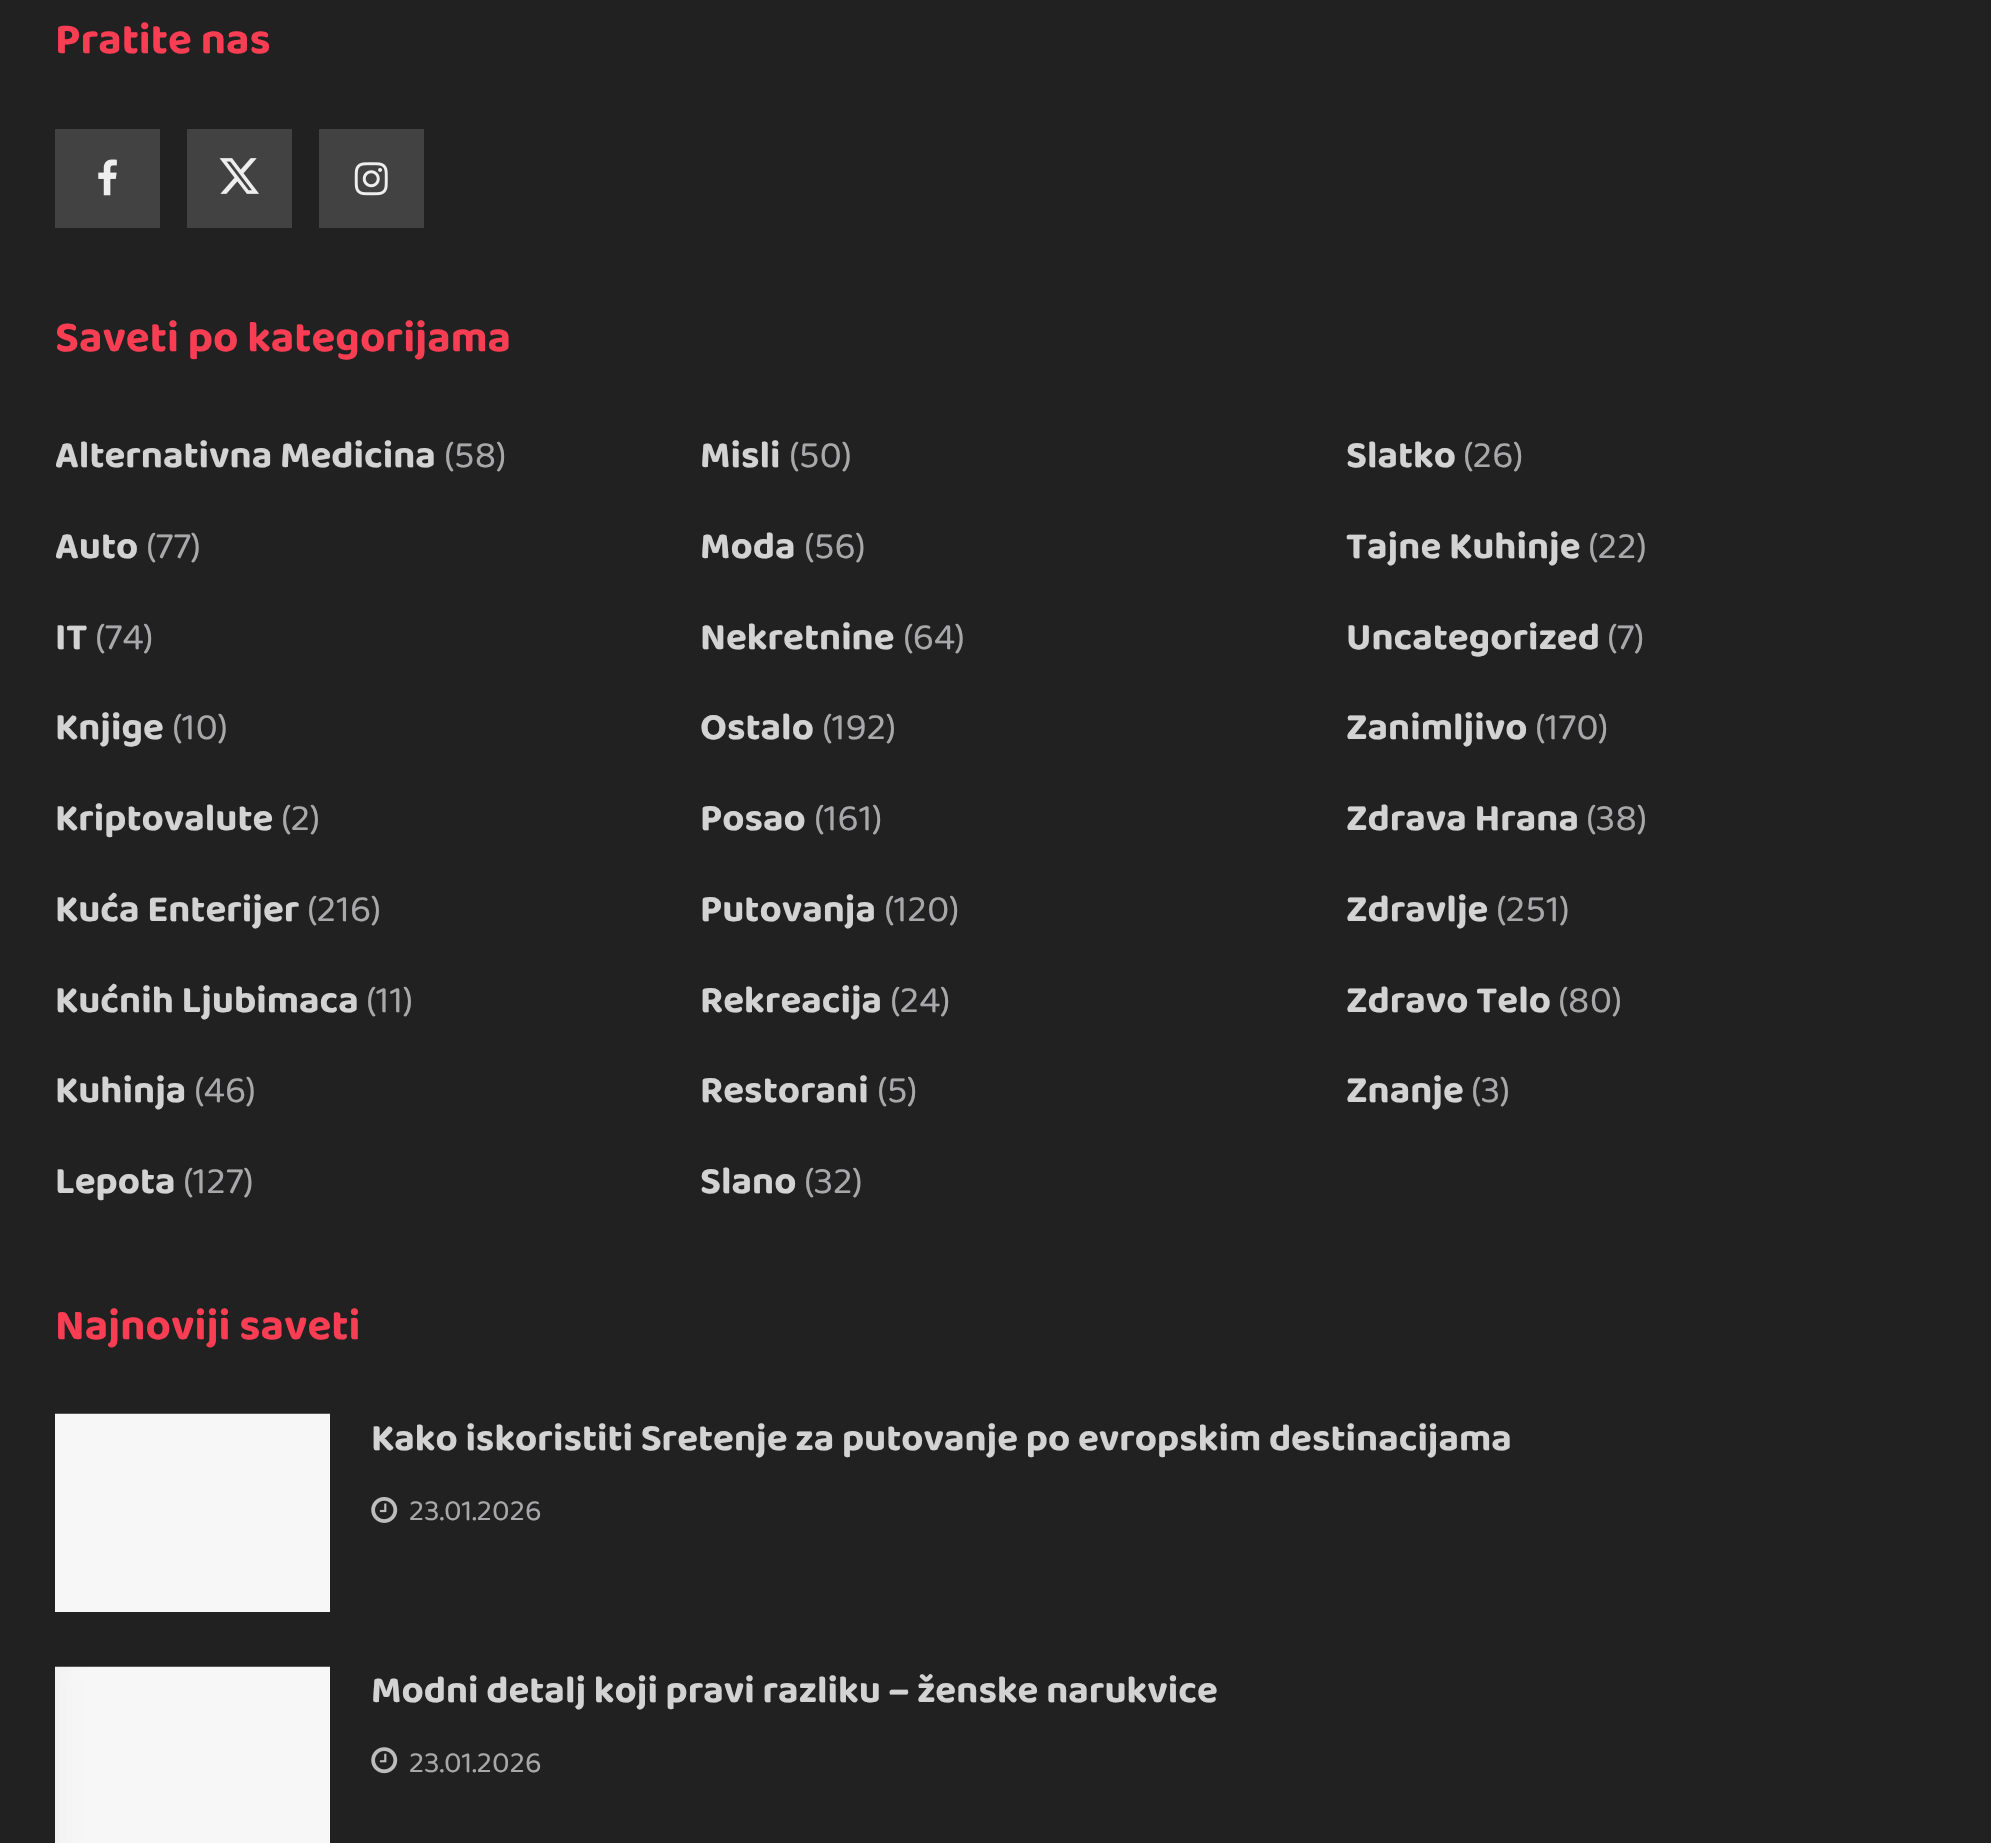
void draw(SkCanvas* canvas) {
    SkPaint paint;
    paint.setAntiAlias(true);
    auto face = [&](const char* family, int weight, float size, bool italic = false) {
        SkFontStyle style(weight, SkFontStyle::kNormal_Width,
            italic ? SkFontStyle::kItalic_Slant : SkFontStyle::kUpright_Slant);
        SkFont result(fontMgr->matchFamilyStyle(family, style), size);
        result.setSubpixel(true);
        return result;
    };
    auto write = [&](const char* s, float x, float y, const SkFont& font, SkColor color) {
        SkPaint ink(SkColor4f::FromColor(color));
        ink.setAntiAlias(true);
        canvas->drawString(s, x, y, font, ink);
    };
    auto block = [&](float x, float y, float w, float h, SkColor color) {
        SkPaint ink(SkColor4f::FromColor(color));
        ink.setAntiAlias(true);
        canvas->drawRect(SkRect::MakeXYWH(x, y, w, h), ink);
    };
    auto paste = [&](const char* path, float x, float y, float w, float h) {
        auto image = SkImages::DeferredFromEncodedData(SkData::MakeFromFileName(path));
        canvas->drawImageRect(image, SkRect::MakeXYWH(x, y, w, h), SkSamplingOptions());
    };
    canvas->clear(SkColorSetRGB(33, 33, 33));
    auto kFont1 = face("Baloo Da 2", 700, 44);
    write("Pratite nas", 55, 53, kFont1, SkColorSetRGB(249, 61, 83));
    block(55, 129, 105, 99, SkColorSetRGB(66, 66, 66));
    paste("pic1.png", 98, 159, 19, 37);
    block(187, 129, 105, 99, SkColorSetRGB(66, 66, 66));
    paste("pic2.png", 219, 158, 40, 36);
    block(319, 129, 105, 99, SkColorSetRGB(66, 66, 66));
    paste("pic3.png", 354, 162, 34, 34);
    write("Saveti po kategorijama", 55, 351, kFont1, SkColorSetRGB(249, 61, 83));
    auto kFont2 = face("Baloo Da 2", 700, 38.5f);
    write("Alternativna Medicina", 55, 467, kFont2, SkColorSetRGB(211, 211, 211));
    auto kFont3 = face("Baloo Da 2", 400, 38.5f);
    write("(58)", 444, 467, kFont3, SkColorSetRGB(168, 168, 170));
    write("Misli", 700, 467, kFont2, SkColorSetRGB(211, 211, 211));
    write("(50)", 789, 467, kFont3, SkColorSetRGB(168, 168, 170));
    write("Slatko", 1346, 467, kFont2, SkColorSetRGB(211, 211, 211));
    write("(26)", 1463, 467, kFont3, SkColorSetRGB(168, 168, 170));
    write("Auto", 55, 558, kFont2, SkColorSetRGB(211, 211, 211));
    write("(77)", 146, 558, kFont3, SkColorSetRGB(168, 168, 170));
    write("Moda", 700, 558, kFont2, SkColorSetRGB(211, 211, 211));
    write("(56)", 804, 558, kFont3, SkColorSetRGB(168, 168, 170));
    write("Tajne Kuhinje", 1346, 558, kFont2, SkColorSetRGB(211, 211, 211));
    write("(22)", 1588, 558, kFont3, SkColorSetRGB(168, 168, 170));
    write("IT", 55, 649, kFont2, SkColorSetRGB(211, 211, 211));
    write("(74)", 95, 649, kFont3, SkColorSetRGB(168, 168, 170));
    write("Nekretnine", 700, 649, kFont2, SkColorSetRGB(211, 211, 211));
    write("(64)", 903, 649, kFont3, SkColorSetRGB(168, 168, 170));
    write("Uncategorized", 1346, 649, kFont2, SkColorSetRGB(211, 211, 211));
    write("(7)", 1607, 649, kFont3, SkColorSetRGB(168, 168, 170));
    write("Knjige", 55, 739, kFont2, SkColorSetRGB(211, 211, 211));
    write("(10)", 172, 739, kFont3, SkColorSetRGB(168, 168, 170));
    write("Ostalo", 700, 739, kFont2, SkColorSetRGB(211, 211, 211));
    write("(192)", 822, 739, kFont3, SkColorSetRGB(168, 168, 170));
    write("Zanimljivo", 1346, 739, kFont2, SkColorSetRGB(211, 211, 211));
    write("(170)", 1535, 739, kFont3, SkColorSetRGB(168, 168, 170));
    write("Kriptovalute", 55, 830, kFont2, SkColorSetRGB(211, 211, 211));
    write("(2)", 281, 830, kFont3, SkColorSetRGB(168, 168, 170));
    write("Posao", 700, 830, kFont2, SkColorSetRGB(211, 211, 211));
    write("(161)", 814, 830, kFont3, SkColorSetRGB(168, 168, 170));
    write("Zdrava Hrana", 1346, 830, kFont2, SkColorSetRGB(211, 211, 211));
    write("(38)", 1586, 830, kFont3, SkColorSetRGB(168, 168, 170));
    write("Kuća Enterijer", 55, 921, kFont2, SkColorSetRGB(211, 211, 211));
    write("(216)", 307, 921, kFont3, SkColorSetRGB(168, 168, 170));
    write("Putovanja", 700, 921, kFont2, SkColorSetRGB(211, 211, 211));
    write("(120)", 884, 921, kFont3, SkColorSetRGB(168, 168, 170));
    write("Zdravlje", 1346, 921, kFont2, SkColorSetRGB(211, 211, 211));
    write("(251)", 1496, 921, kFont3, SkColorSetRGB(168, 168, 170));
    write("Kućnih Ljubimaca", 55, 1012, kFont2, SkColorSetRGB(211, 211, 211));
    write("(11)", 366, 1012, kFont3, SkColorSetRGB(168, 168, 170));
    write("Rekreacija", 700, 1012, kFont2, SkColorSetRGB(211, 211, 211));
    write("(24)", 890, 1012, kFont3, SkColorSetRGB(168, 168, 170));
    write("Zdravo Telo", 1346, 1012, kFont2, SkColorSetRGB(211, 211, 211));
    write("(80)", 1558, 1012, kFont3, SkColorSetRGB(168, 168, 170));
    write("Kuhinja", 55, 1102, kFont2, SkColorSetRGB(211, 211, 211));
    write("(46)", 194, 1102, kFont3, SkColorSetRGB(168, 168, 170));
    write("Restorani", 700, 1102, kFont2, SkColorSetRGB(211, 211, 211));
    write("(5)", 877, 1102, kFont3, SkColorSetRGB(168, 168, 170));
    write("Znanje", 1346, 1102, kFont2, SkColorSetRGB(211, 211, 211));
    write("(3)", 1471, 1102, kFont3, SkColorSetRGB(168, 168, 170));
    write("Lepota", 55, 1193, kFont2, SkColorSetRGB(211, 211, 211));
    write("(127)", 183, 1193, kFont3, SkColorSetRGB(168, 168, 170));
    write("Slano", 700, 1193, kFont2, SkColorSetRGB(211, 211, 211));
    write("(32)", 804, 1193, kFont3, SkColorSetRGB(168, 168, 170));
    write("Najnoviji saveti", 55, 1339, kFont1, SkColorSetRGB(249, 61, 83));
    block(55, 1414, 275, 198, SkColorSetRGB(247, 247, 247));
    block(55, 1413, 275, 1, SkColorSetRGB(87, 87, 87));
    write("Kako iskoristiti Sretenje za putovanje po evropskim destinacijama", 371, 1450, kFont2, SkColorSetRGB(211, 211, 211));
    paste("pic4.png", 371, 1497, 27, 26);
    auto kFont4 = face("Baloo Da 2", 400, 30.25f);
    write("23.01.2026", 409, 1520, kFont4, SkColorSetRGB(168, 168, 170));
    paste("pic5.png", 55, 1666, 275, 177);
    write("Modni detalj koji pravi razliku – ženske narukvice", 371, 1702, kFont2, SkColorSetRGB(211, 211, 211));
    paste("pic6.png", 371, 1747, 27, 27);
    write("23.01.2026", 409, 1772, kFont4, SkColorSetRGB(168, 168, 170));
}
